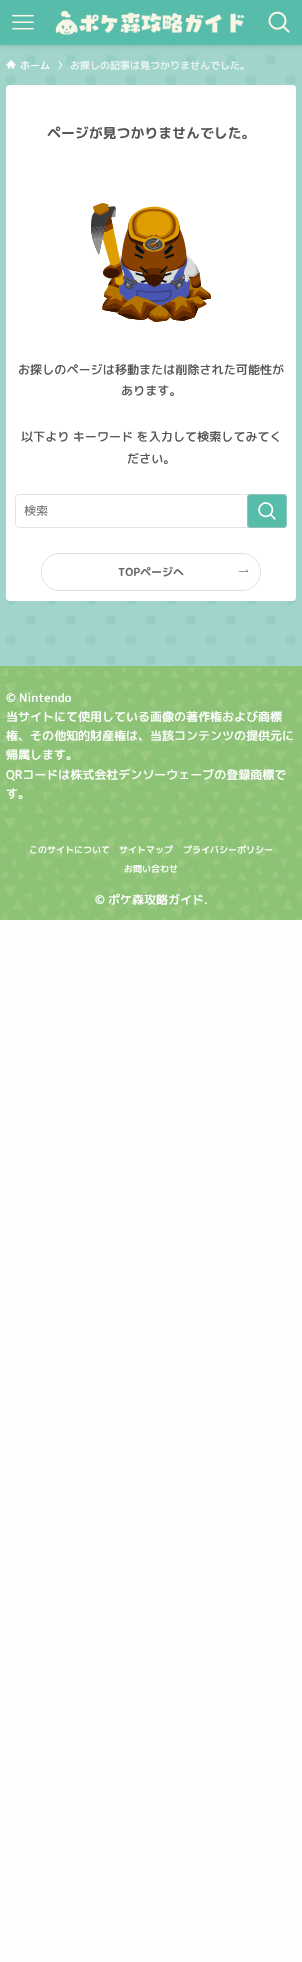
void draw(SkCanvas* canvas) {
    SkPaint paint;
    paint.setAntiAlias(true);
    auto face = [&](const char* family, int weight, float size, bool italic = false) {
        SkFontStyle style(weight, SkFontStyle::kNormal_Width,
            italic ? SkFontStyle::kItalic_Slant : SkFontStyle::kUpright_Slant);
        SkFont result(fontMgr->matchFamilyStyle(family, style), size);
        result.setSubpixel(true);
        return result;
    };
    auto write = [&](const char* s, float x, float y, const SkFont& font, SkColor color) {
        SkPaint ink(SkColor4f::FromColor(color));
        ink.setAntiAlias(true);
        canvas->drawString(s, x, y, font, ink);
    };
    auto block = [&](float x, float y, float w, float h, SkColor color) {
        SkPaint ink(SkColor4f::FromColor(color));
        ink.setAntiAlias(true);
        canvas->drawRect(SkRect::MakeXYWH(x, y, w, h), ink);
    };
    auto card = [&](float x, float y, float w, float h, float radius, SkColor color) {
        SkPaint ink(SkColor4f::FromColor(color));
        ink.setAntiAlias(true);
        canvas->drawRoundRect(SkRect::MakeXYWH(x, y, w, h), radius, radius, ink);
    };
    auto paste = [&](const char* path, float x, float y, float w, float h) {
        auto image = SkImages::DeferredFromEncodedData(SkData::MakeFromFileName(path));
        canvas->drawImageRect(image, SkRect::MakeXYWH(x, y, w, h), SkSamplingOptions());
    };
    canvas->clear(SkColorSetRGB(253, 253, 253));
    paste("pic1.png", 0, 45, 302, 621);
    paint.setColor(SkColorSetARGB(31, 0, 0, 0));
    paint.setMaskFilter(SkMaskFilter::MakeBlur(kNormal_SkBlurStyle, 2));
    canvas->drawRect(SkRect::MakeXYWH(0, 1, 302, 45), paint);
    paint.setMaskFilter(nullptr);
    block(0, 0, 302, 45, SkColorSetRGB(87, 188, 169));
    paste("pic2.png", 12, 14, 22, 16);
    paste("pic3.png", 55, 10, 190, 25);
    paste("pic4.png", 268, 11, 22, 22);
    paste("pic5.png", 6, 60, 10, 9);
    auto kFont1 = face("Rounded Mplus 1c", 500, 10);
    write("ホーム", 20, 69, kFont1, SK_ColorWHITE);
    paint.setColor(SkColorSetRGB(236, 246, 244));
    canvas->drawPath(SkPathBuilder().moveTo(59.5f, 61).lineTo(58, 61).lineTo(61, 65).lineTo(58, 69).lineTo(59.5f, 69).lineTo(62.5f, 65).close().detach(), paint);
    write("お探しの記事は見つかりませんでした。", 70, 69, kFont1, SkColorSetRGB(236, 246, 244));
    card(6, 85, 290, 516, 4, SK_ColorWHITE);
    auto kFont2 = face("Rounded Mplus 1c Bold", 700, 13.9f);
    write("ページが見つかりませんでした。", 47, 138, kFont2, SkColorSetRGB(86, 86, 86));
    paste("pic6.png", 91, 203, 120, 119);
    auto kFont3 = face("Rounded Mplus 1c", 500, 12.1f);
    write("お探しのページは移動または削除された可能性が", 18, 374, kFont3, SkColorSetRGB(86, 86, 86));
    write("あります。", 121, 395, kFont3, SkColorSetRGB(86, 86, 86));
    write("以下より キーワード を入力して検索してみてく", 21, 441, kFont3, SkColorSetRGB(86, 86, 86));
    write("ださい。", 127, 463, kFont3, SkColorSetRGB(86, 86, 86));
    paint.setStyle(SkPaint::kStroke_Style);
    paint.setStrokeWidth(1);
    paint.setColor(SkColorSetRGB(227, 227, 227));
    canvas->drawRoundRect(SkRect::MakeXYWH(15.5f, 494.5f, 271, 33), 3.5f, 3.5f, paint);
    auto kFont4 = face("Rounded Mplus 1c", 400, 12.1f);
    write("検索", 24, 515, kFont4, SkColorSetRGB(117, 117, 117));
    card(247, 494, 40, 34, 4, SkColorSetRGB(87, 188, 169));
    paint.setColor(SkColorSetARGB(128, 199, 199, 199));
    canvas->drawRoundRect(SkRect::MakeXYWH(247.5f, 494.5f, 39, 33), 3.5f, 3.5f, paint);
    paste("pic7.png", 258, 502, 18, 18);
    paint.setColor(SkColorSetRGB(220, 220, 220));
    canvas->drawRoundRect(SkRect::MakeXYWH(41.5f, 553.5f, 219, 37), 18.5f, 18.5f, paint);
    card(42, 554, 218, 36, 18, SK_ColorWHITE);
    auto kFont5 = face("Rounded Mplus 1c Bold", 700, 11);
    write("TOPページへ", 118, 576, kFont5, SkColorSetRGB(102, 102, 102));
    paste("pic8.png", 238, 569, 11, 3);
    paste("pic9.png", 0, 666, 302, 254);
    auto kFont6 = face("Rounded Mplus 1c", 500, 12);
    write("© Nintendo", 6, 702, kFont6, SK_ColorWHITE);
    write("当サイトにて使用している画像の著作権および商標", 6, 721, kFont6, SK_ColorWHITE);
    write("権、その他知的財産権は、当該コンテンツの提供元に", 6, 740, kFont6, SK_ColorWHITE);
    write("帰属します。", 6, 759, kFont6, SK_ColorWHITE);
    write("QRコードは株式会社デンソーウェーブの登録商標で", 6, 779, kFont6, SK_ColorWHITE);
    write("す。", 6, 798, kFont6, SK_ColorWHITE);
    auto kFont7 = face("Rounded Mplus 1c", 500, 9);
    write("このサイトについて", 29, 853, kFont7, SK_ColorWHITE);
    write("サイトマップ", 119, 853, kFont7, SK_ColorWHITE);
    write("プライバシーポリシー", 183, 853, kFont7, SK_ColorWHITE);
    write("お問い合わせ", 124, 872, kFont7, SK_ColorWHITE);
    write("© ポケ森攻略ガイド.", 95, 904, kFont6, SK_ColorWHITE);
}
